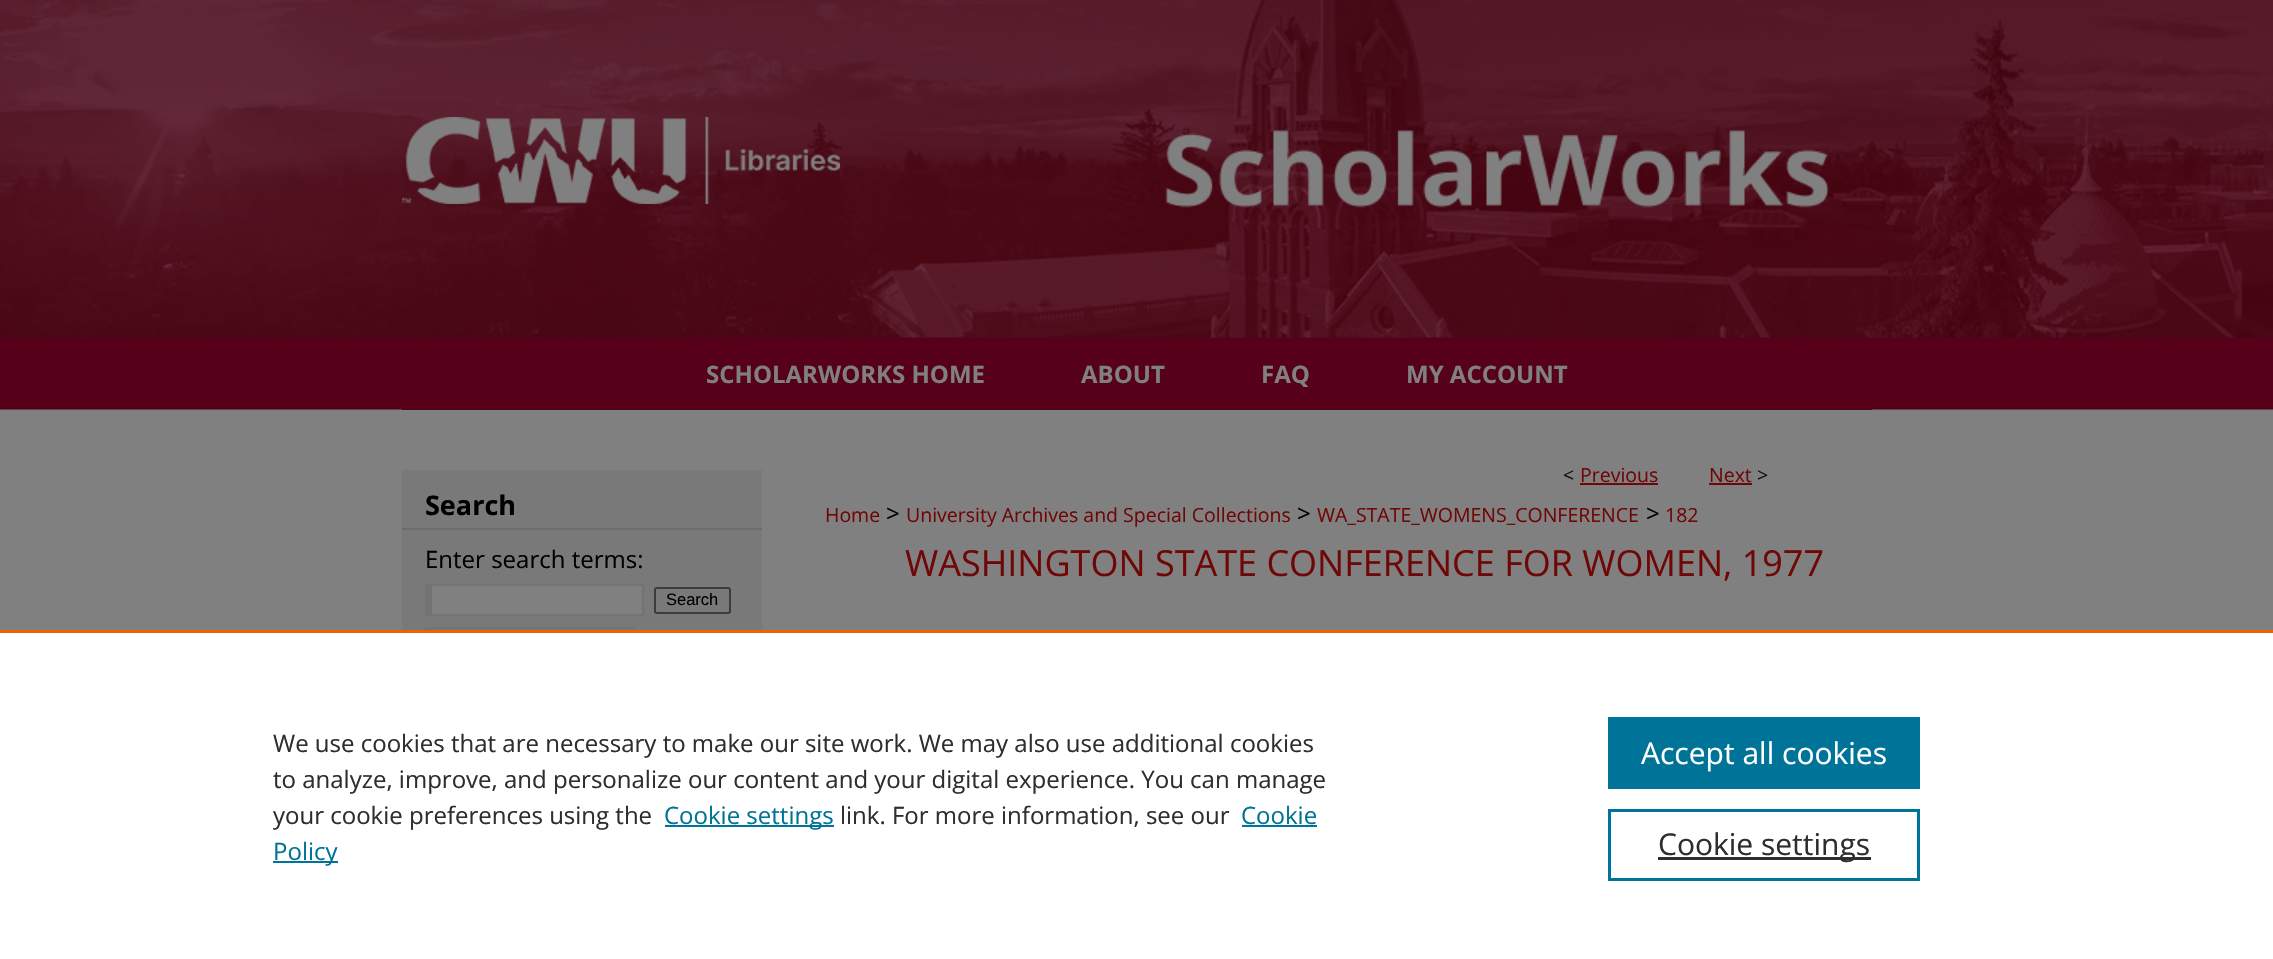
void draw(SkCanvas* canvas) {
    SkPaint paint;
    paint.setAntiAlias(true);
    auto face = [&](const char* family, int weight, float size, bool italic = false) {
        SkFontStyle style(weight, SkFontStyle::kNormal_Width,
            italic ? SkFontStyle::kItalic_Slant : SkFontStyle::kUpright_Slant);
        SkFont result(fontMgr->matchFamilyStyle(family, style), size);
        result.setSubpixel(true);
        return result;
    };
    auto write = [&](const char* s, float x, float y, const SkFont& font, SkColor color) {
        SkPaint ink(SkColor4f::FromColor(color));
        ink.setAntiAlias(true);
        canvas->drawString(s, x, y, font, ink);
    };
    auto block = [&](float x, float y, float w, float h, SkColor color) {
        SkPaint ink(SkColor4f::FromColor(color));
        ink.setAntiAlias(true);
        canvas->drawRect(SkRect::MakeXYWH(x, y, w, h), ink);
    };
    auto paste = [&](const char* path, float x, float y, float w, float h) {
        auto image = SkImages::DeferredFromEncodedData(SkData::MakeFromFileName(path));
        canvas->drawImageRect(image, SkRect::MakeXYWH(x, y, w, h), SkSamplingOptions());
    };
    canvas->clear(SkColorSetRGB(128, 128, 128));
    paste("pic1.png", 0, 0, 2273, 410);
    paste("pic2.png", 402, 117, 438, 87);
    paste("pic3.png", 1165, 130, 664, 78);
    block(402, 409, 1470, 1, SkColorSetRGB(86, 0, 25));
    auto kFont1 = face("Open Sans", 700, 24);
    write("SCHOLARWORKS HOME", 706, 383, kFont1, SkColorSetRGB(128, 128, 128));
    write("ABOUT", 1081, 383, kFont1, SkColorSetRGB(128, 128, 128));
    write("FAQ", 1261, 383, kFont1, SkColorSetRGB(128, 128, 128));
    write("MY ACCOUNT", 1406, 383, kFont1, SkColorSetRGB(128, 128, 128));
    block(402, 470, 360, 160, SkColorSetRGB(121, 121, 121));
    block(402, 528, 360, 2, SkColorSetRGB(108, 108, 108));
    auto kFont2 = face("Open Sans", 700, 27);
    write("Search", 425, 515, kFont2, SK_ColorBLACK);
    auto kFont3 = face("Open Sans", 400, 24);
    write("Enter search terms:", 425, 568, kFont3, SK_ColorBLACK);
    block(432, 586, 210, 28, SkColorSetRGB(128, 128, 128));
    block(425, 584, 219, 2, SkColorSetRGB(115, 115, 115));
    block(642, 584, 2, 31, SkColorSetRGB(115, 115, 115));
    block(425, 614, 219, 2, SkColorSetRGB(115, 115, 115));
    block(425, 584, 7, 31, SkColorSetRGB(115, 115, 115));
    paint.setStyle(SkPaint::kStroke_Style);
    paint.setStrokeWidth(2);
    paint.setColor(SkColorSetRGB(59, 59, 59));
    canvas->drawRoundRect(SkRect::MakeXYWH(655, 588, 75, 25), 2, 2, paint);
    auto kFont4 = face("Liberation Sans", 400, 16.5f);
    write("Search", 666, 605, kFont4, SK_ColorBLACK);
    block(425, 627, 210, 2, SkColorSetRGB(115, 115, 115));
    block(633, 627, 2, 3, SkColorSetRGB(115, 115, 115));
    block(425, 629, 7, 1, SkColorSetRGB(115, 115, 115));
    auto kFont5 = face("Open Sans", 400, 19.5f);
    write("<", 1563, 482, kFont5, SkColorSetRGB(17, 17, 17));
    write("Previous", 1580, 482, kFont5, SkColorSetRGB(111, 7, 7));
    block(1580, 483, 78, 2, SkColorSetRGB(111, 7, 7));
    write("Next", 1709, 482, kFont5, SkColorSetRGB(111, 7, 7));
    block(1709, 483, 43, 2, SkColorSetRGB(111, 7, 7));
    write(">", 1757, 482, kFont5, SkColorSetRGB(17, 17, 17));
    write("Home", 825, 522, kFont5, SkColorSetRGB(111, 7, 7));
    write(">", 886, 522, kFont3, SK_ColorBLACK);
    write("University Archives and Special Collections", 906, 522, kFont5, SkColorSetRGB(111, 7, 7));
    write(">", 1297, 522, kFont3, SK_ColorBLACK);
    write("WA_STATE_WOMENS_CONFERENCE", 1317, 522, kFont5, SkColorSetRGB(111, 7, 7));
    write(">", 1646, 522, kFont3, SK_ColorBLACK);
    write("182", 1665, 522, kFont5, SkColorSetRGB(111, 7, 7));
    auto kFont6 = face("Open Sans", 400, 36);
    write("WASHINGTON STATE CONFERENCE FOR WOMEN, 1977", 905, 576, kFont6, SkColorSetRGB(111, 7, 7));
    block(0, 633, 2273, 326, SK_ColorWHITE);
    block(0, 630, 2273, 3, SkColorSetRGB(235, 101, 0));
    write("We use cookies that are necessary to make our site work. We may also use additional cookies", 273, 752, kFont3, SkColorSetRGB(46, 46, 46));
    write("to analyze, improve, and personalize our content and your digital experience. You can manage", 273, 788, kFont3, SkColorSetRGB(46, 46, 46));
    write("your cookie preferences using the", 273, 824, kFont3, SkColorSetRGB(46, 46, 46));
    block(665, 825, 169, 2, SkColorSetRGB(0, 115, 152));
    write("Cookie settings", 664, 824, kFont3, SkColorSetRGB(0, 115, 152));
    write("link. For more information, see our", 840, 824, kFont3, SkColorSetRGB(46, 46, 46));
    write("Cookie", 1241, 824, kFont3, SkColorSetRGB(0, 115, 152));
    block(1242, 825, 75, 2, SkColorSetRGB(0, 115, 152));
    block(273, 861, 65, 2, SkColorSetRGB(0, 115, 152));
    write("Policy", 273, 860, kFont3, SkColorSetRGB(0, 115, 152));
    block(1608, 717, 312, 72, SkColorSetRGB(0, 115, 152));
    auto kFont7 = face("Open Sans", 400, 30);
    write("Accept all cookies", 1641, 764, kFont7, SK_ColorWHITE);
    paint.setStrokeWidth(3);
    paint.setColor(SkColorSetRGB(0, 115, 152));
    canvas->drawRect(SkRect::MakeXYWH(1609.5f, 810.5f, 309, 69), paint);
    block(1658, 857, 213, 3, SkColorSetRGB(46, 46, 46));
    write("Cookie settings", 1658, 855, kFont7, SkColorSetRGB(46, 46, 46));
}
